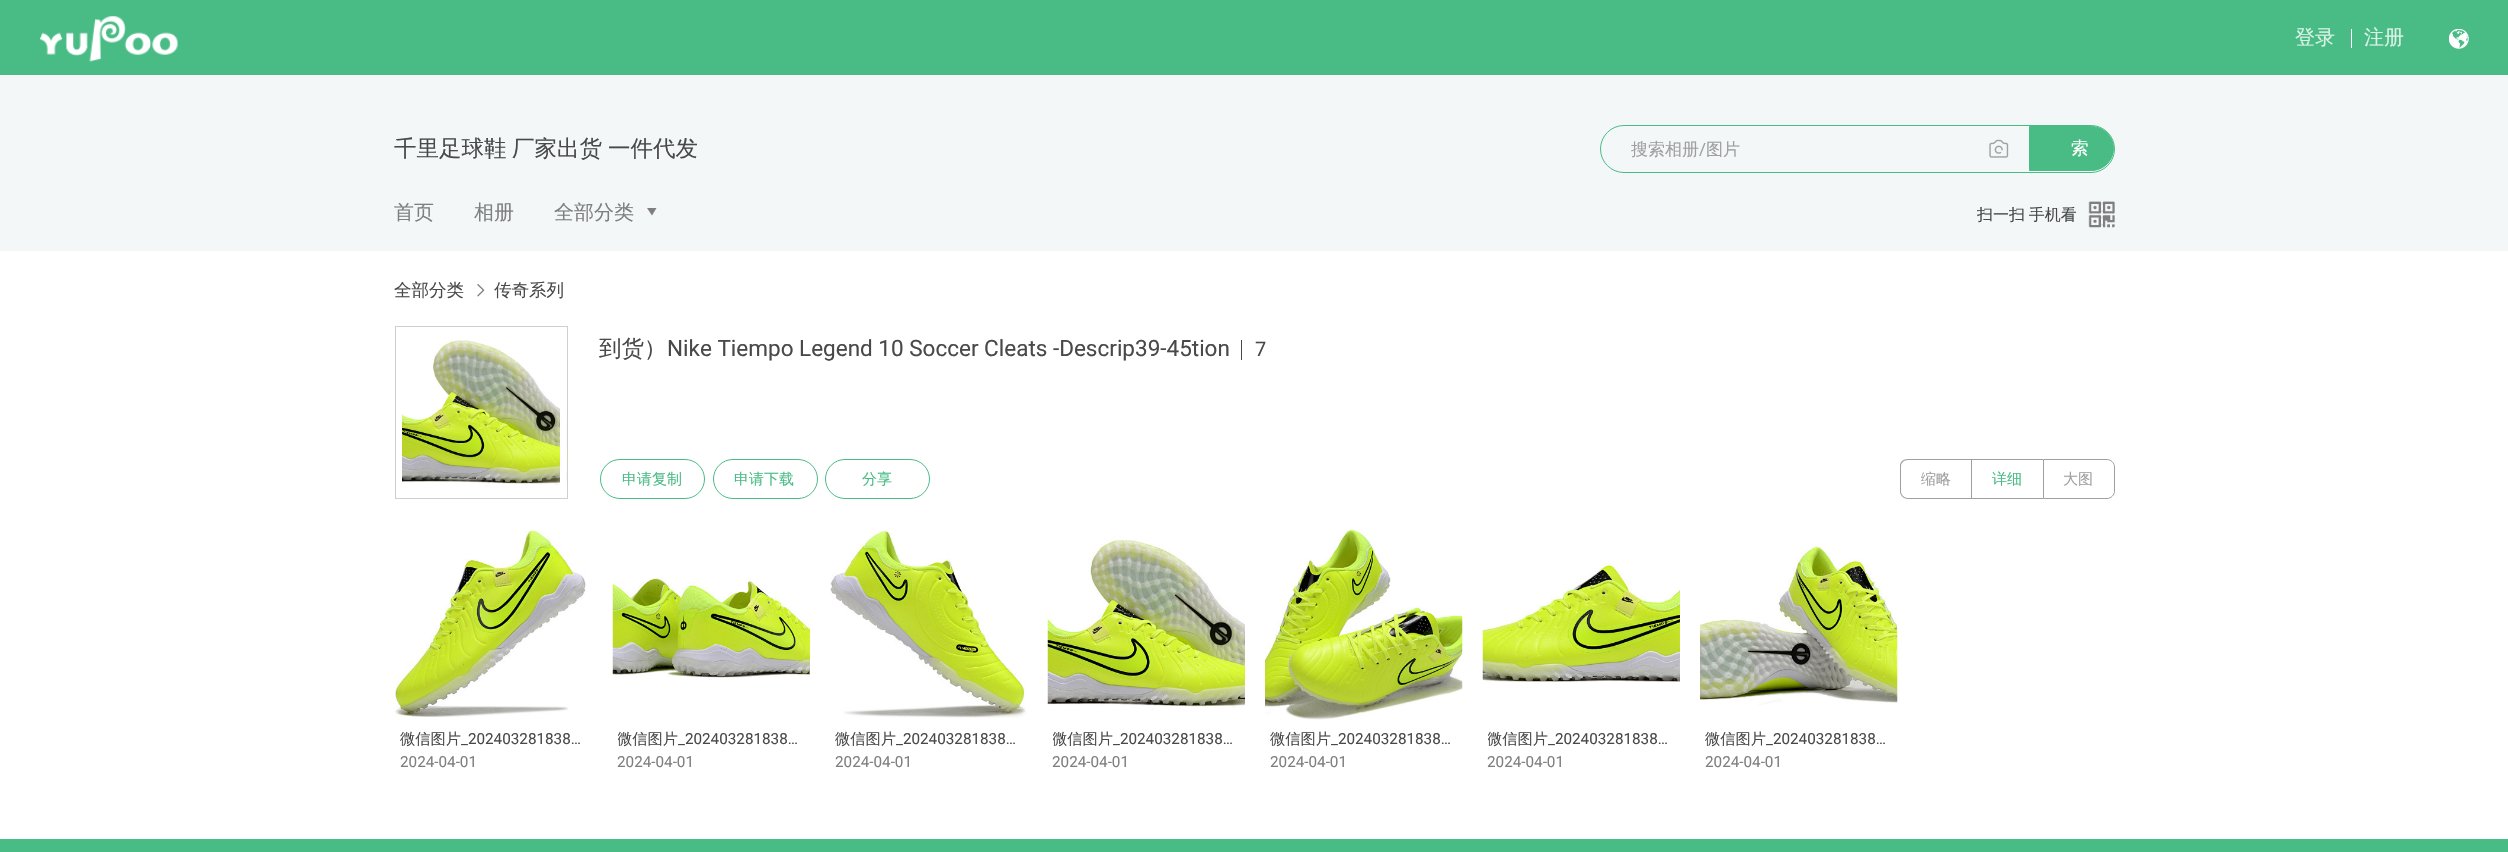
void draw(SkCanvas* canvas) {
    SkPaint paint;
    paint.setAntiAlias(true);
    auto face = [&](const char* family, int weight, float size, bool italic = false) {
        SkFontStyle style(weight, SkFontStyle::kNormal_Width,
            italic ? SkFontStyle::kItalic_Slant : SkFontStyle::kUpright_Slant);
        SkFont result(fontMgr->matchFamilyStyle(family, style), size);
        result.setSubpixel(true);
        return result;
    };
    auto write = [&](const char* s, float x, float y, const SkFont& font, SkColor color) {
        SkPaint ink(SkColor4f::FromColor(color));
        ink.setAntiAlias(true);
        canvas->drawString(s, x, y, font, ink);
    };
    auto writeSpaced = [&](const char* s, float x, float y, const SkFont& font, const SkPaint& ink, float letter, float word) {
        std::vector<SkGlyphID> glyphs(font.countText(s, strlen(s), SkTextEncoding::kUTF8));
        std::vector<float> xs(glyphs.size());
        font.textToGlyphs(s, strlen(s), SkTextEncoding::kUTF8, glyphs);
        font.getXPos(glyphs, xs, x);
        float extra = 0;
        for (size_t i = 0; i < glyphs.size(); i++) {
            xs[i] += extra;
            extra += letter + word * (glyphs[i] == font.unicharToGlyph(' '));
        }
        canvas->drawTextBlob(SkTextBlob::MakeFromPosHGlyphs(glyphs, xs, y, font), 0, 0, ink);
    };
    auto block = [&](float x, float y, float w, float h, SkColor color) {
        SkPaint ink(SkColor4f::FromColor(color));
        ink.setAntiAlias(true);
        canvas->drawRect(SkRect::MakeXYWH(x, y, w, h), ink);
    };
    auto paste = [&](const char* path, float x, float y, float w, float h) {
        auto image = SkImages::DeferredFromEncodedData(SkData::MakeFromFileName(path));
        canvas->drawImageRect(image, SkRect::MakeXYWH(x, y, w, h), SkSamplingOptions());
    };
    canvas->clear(SK_ColorWHITE);
    block(0, 0, 2508, 75, SkColorSetRGB(73, 188, 133));
    paste("pic1.png", 40, 16, 138, 46);
    auto kFont1 = face("WenQuanYi Zen Hei", 500, 20);
    write("登录", 2295, 44, kFont1, SkColorSetRGB(219, 242, 231));
    block(2351, 29, 1, 19, SK_ColorWHITE);
    write("注册", 2364, 44, kFont1, SkColorSetRGB(219, 242, 231));
    paste("pic2.png", 2449, 29, 20, 20);
    block(0, 75, 2508, 176, SkColorSetRGB(243, 247, 247));
    auto kFont2 = face("WenQuanYi Zen Hei", 500, 22.5f);
    write("千里足球鞋", 394, 156, kFont2, SkColorSetRGB(73, 73, 73));
    write("厂家出货", 512, 156, kFont2, SkColorSetRGB(73, 73, 73));
    write("一件代发", 608, 156, kFont2, SkColorSetRGB(73, 73, 73));
    paint.setStyle(SkPaint::kStroke_Style);
    paint.setStrokeWidth(1);
    paint.setColor(SkColorSetRGB(73, 188, 133));
    canvas->drawRoundRect(SkRect::MakeXYWH(1600.5f, 125.5f, 514, 47), 23.5f, 23.5f, paint);
    auto kFont3 = face("WenQuanYi Zen Hei", 500, 17);
    write("搜索相册", 1631, 155, kFont3, SkColorSetRGB(159, 159, 159));
    auto kFont4 = face("Roboto", 400, 17);
    write("/", 1699, 155, kFont4, SkColorSetRGB(159, 159, 159));
    write("图片", 1706, 155, kFont3, SkColorSetRGB(159, 159, 159));
    paste("pic3.png", 1989, 139, 20, 19);
    paint.setStyle(SkPaint::kFill_Style);
    canvas->drawPath(SkPathBuilder().moveTo(2029.5f, 126.5f).lineTo(2091.5f, 126.5f).cubicTo(2103.5f, 126.5f, 2113.5f, 136.5f, 2113.5f, 148.5f).cubicTo(2113.5f, 160.5f, 2103.5f, 170.5f, 2091.5f, 170.5f).lineTo(2029.5f, 170.5f).close().detach(), paint);
    paint.setStyle(SkPaint::kStroke_Style);
    canvas->drawPath(SkPathBuilder().moveTo(2029.5f, 126.5f).lineTo(2091.5f, 126.5f).cubicTo(2103.5f, 126.5f, 2113.5f, 136.5f, 2113.5f, 148.5f).cubicTo(2113.5f, 160.5f, 2103.5f, 170.5f, 2091.5f, 170.5f).lineTo(2029.5f, 170.5f).close().detach(), paint);
    auto kFont5 = face("Noto Sans", 400, 17.5f);
    write("搜", 2053, 154, kFont5, SK_ColorWHITE);
    auto kFont6 = face("WenQuanYi Zen Hei", 500, 17.5f);
    write("索", 2071, 154, kFont6, SK_ColorWHITE);
    write("首页", 394, 219, kFont1, SkColorSetRGB(127, 127, 127));
    write("相册", 474, 219, kFont1, SkColorSetRGB(127, 127, 127));
    write("全部分类", 554, 219, kFont1, SkColorSetRGB(127, 127, 127));
    paint.setStyle(SkPaint::kFill_Style);
    paint.setColor(SkColorSetRGB(127, 127, 127));
    canvas->drawPath(SkPathBuilder().moveTo(652, 215.5f).lineTo(647, 208).lineTo(656.5f, 208).close().detach(), paint);
    auto kFont7 = face("WenQuanYi Zen Hei", 500, 16);
    paint.setColor(SkColorSetRGB(73, 73, 73));
    writeSpaced("扫一扫 手机看", 1977, 220, kFont7, paint, 0, -1);
    paste("pic4.png", 2088, 201, 27, 27);
    write("全部分类", 394, 296, kFont6, SkColorSetRGB(73, 73, 73));
    paste("pic5.png", 477, 284, 8, 13);
    write("传奇系列", 494, 296, kFont6, SkColorSetRGB(73, 73, 73));
    paint.setStyle(SkPaint::kStroke_Style);
    paint.setColor(SkColorSetRGB(207, 207, 207));
    canvas->drawRect(SkRect::MakeXYWH(395.5f, 326.5f, 172, 172), paint);
    paste("pic6.png", 402, 340, 165, 147);
    paint.setStrokeWidth(6);
    paint.setColor(SK_ColorWHITE);
    canvas->drawRect(SkRect::MakeXYWH(399, 331, 164, 164), paint);
    write("到货）", 599, 356, kFont2, SkColorSetRGB(73, 73, 73));
    auto kFont8 = face("Roboto", 400, 22.5f);
    write("Nike Tiempo Legend 10 Soccer Cleats -Descrip39-45tion", 667, 356, kFont8, SkColorSetRGB(73, 73, 73));
    block(1241, 340, 1, 20, SkColorSetRGB(73, 73, 73));
    auto kFont9 = face("Roboto", 400, 20);
    write("7", 1255, 356, kFont9, SkColorSetRGB(73, 73, 73));
    paint.setStrokeWidth(1);
    paint.setColor(SkColorSetRGB(73, 188, 133));
    canvas->drawRoundRect(SkRect::MakeXYWH(600.5f, 459.5f, 104, 39), 19.5f, 19.5f, paint);
    auto kFont10 = face("WenQuanYi Zen Hei", 500, 15);
    write("申请复制", 622, 484, kFont10, SkColorSetRGB(73, 188, 133));
    canvas->drawRoundRect(SkRect::MakeXYWH(713.5f, 459.5f, 104, 39), 19.5f, 19.5f, paint);
    write("申请下载", 734, 484, kFont10, SkColorSetRGB(73, 188, 133));
    canvas->drawRoundRect(SkRect::MakeXYWH(825.5f, 459.5f, 104, 39), 19.5f, 19.5f, paint);
    write("分享", 862, 484, kFont10, SkColorSetRGB(73, 188, 133));
    paint.setStyle(SkPaint::kFill_Style);
    paint.setColor(SkColorSetRGB(159, 159, 159));
    canvas->drawPath(SkPathBuilder(SkPathFillType::kEvenOdd).moveTo(1908, 459).lineTo(1971, 459).lineTo(1971, 499).lineTo(1908, 499).cubicTo(1903, 499, 1900, 495, 1900, 491).lineTo(1900, 466).cubicTo(1900, 462, 1903, 459, 1908, 459).close().moveTo(1908, 460).lineTo(1971, 460).lineTo(1971, 498).lineTo(1908, 498).cubicTo(1904, 498, 1901, 495, 1901, 491).lineTo(1901, 466).cubicTo(1901, 463, 1904, 460, 1908, 460).close().detach(), paint);
    write("缩略", 1921, 484, kFont10, SkColorSetRGB(159, 159, 159));
    block(1971, 459, 72, 1, SkColorSetRGB(159, 159, 159));
    block(1971, 498, 72, 1, SkColorSetRGB(159, 159, 159));
    block(1971, 459, 1, 40, SkColorSetRGB(159, 159, 159));
    write("详细", 1992, 484, kFont10, SkColorSetRGB(73, 188, 133));
    paint.setStyle(SkPaint::kStroke_Style);
    canvas->drawPath(SkPathBuilder().moveTo(2043.5f, 459.5f).lineTo(2107, 459.5f).cubicTo(2111, 459.5f, 2114.5f, 463, 2114.5f, 467).lineTo(2114.5f, 491).cubicTo(2114.5f, 495, 2111, 498.5f, 2107, 498.5f).lineTo(2043.5f, 498.5f).close().detach(), paint);
    write("大图", 2063, 484, kFont10, SkColorSetRGB(159, 159, 159));
    paste("pic7.png", 395, 530, 191, 187);
    auto kFont11 = face("WenQuanYi Zen Hei", 500, 15.25f);
    write("微信图片", 400, 744, kFont11, SkColorSetRGB(73, 73, 73));
    auto kFont12 = face("Roboto", 400, 15.25f);
    write("_202403281838…", 461, 744, kFont12, SkColorSetRGB(73, 73, 73));
    write("2024-04-01", 400, 767, kFont12, SkColorSetRGB(127, 127, 127));
    paste("pic8.png", 612, 577, 198, 101);
    canvas->save();
    canvas->clipRect(SkRect::MakeXYWH(618, 728, 186, 23));
    write("微信图片", 617, 744, kFont11, SkColorSetRGB(73, 73, 73));
    canvas->restore();
    write("_202403281838…", 678, 744, kFont12, SkColorSetRGB(73, 73, 73));
    write("2024-04-01", 617, 767, kFont12, SkColorSetRGB(127, 127, 127));
    paste("pic9.png", 830, 530, 197, 188);
    write("微信图片", 835, 744, kFont11, SkColorSetRGB(73, 73, 73));
    write("_202403281838…", 896, 744, kFont12, SkColorSetRGB(73, 73, 73));
    write("2024-04-01", 835, 767, kFont12, SkColorSetRGB(127, 127, 127));
    paste("pic10.png", 1047, 539, 198, 171);
    canvas->save();
    canvas->clipRect(SkRect::MakeXYWH(1053, 728, 186, 23));
    write("微信图片", 1052, 744, kFont11, SkColorSetRGB(73, 73, 73));
    canvas->restore();
    write("_202403281838…", 1113, 744, kFont12, SkColorSetRGB(73, 73, 73));
    write("2024-04-01", 1052, 767, kFont12, SkColorSetRGB(127, 127, 127));
    paste("pic11.png", 1265, 529, 198, 191);
    write("微信图片", 1270, 744, kFont11, SkColorSetRGB(73, 73, 73));
    write("_202403281838…", 1331, 744, kFont12, SkColorSetRGB(73, 73, 73));
    write("2024-04-01", 1270, 767, kFont12, SkColorSetRGB(127, 127, 127));
    paste("pic12.png", 1482, 563, 198, 119);
    canvas->save();
    canvas->clipRect(SkRect::MakeXYWH(1488, 728, 186, 23));
    write("微信图片", 1487, 744, kFont11, SkColorSetRGB(73, 73, 73));
    canvas->restore();
    write("_202403281838…", 1548, 744, kFont12, SkColorSetRGB(73, 73, 73));
    write("2024-04-01", 1487, 767, kFont12, SkColorSetRGB(127, 127, 127));
    paste("pic13.png", 1700, 545, 198, 160);
    write("微信图片", 1705, 744, kFont11, SkColorSetRGB(73, 73, 73));
    write("_202403281838…", 1766, 744, kFont12, SkColorSetRGB(73, 73, 73));
    write("2024-04-01", 1705, 767, kFont12, SkColorSetRGB(127, 127, 127));
    block(0, 839, 2508, 13, SkColorSetRGB(73, 188, 133));
}
